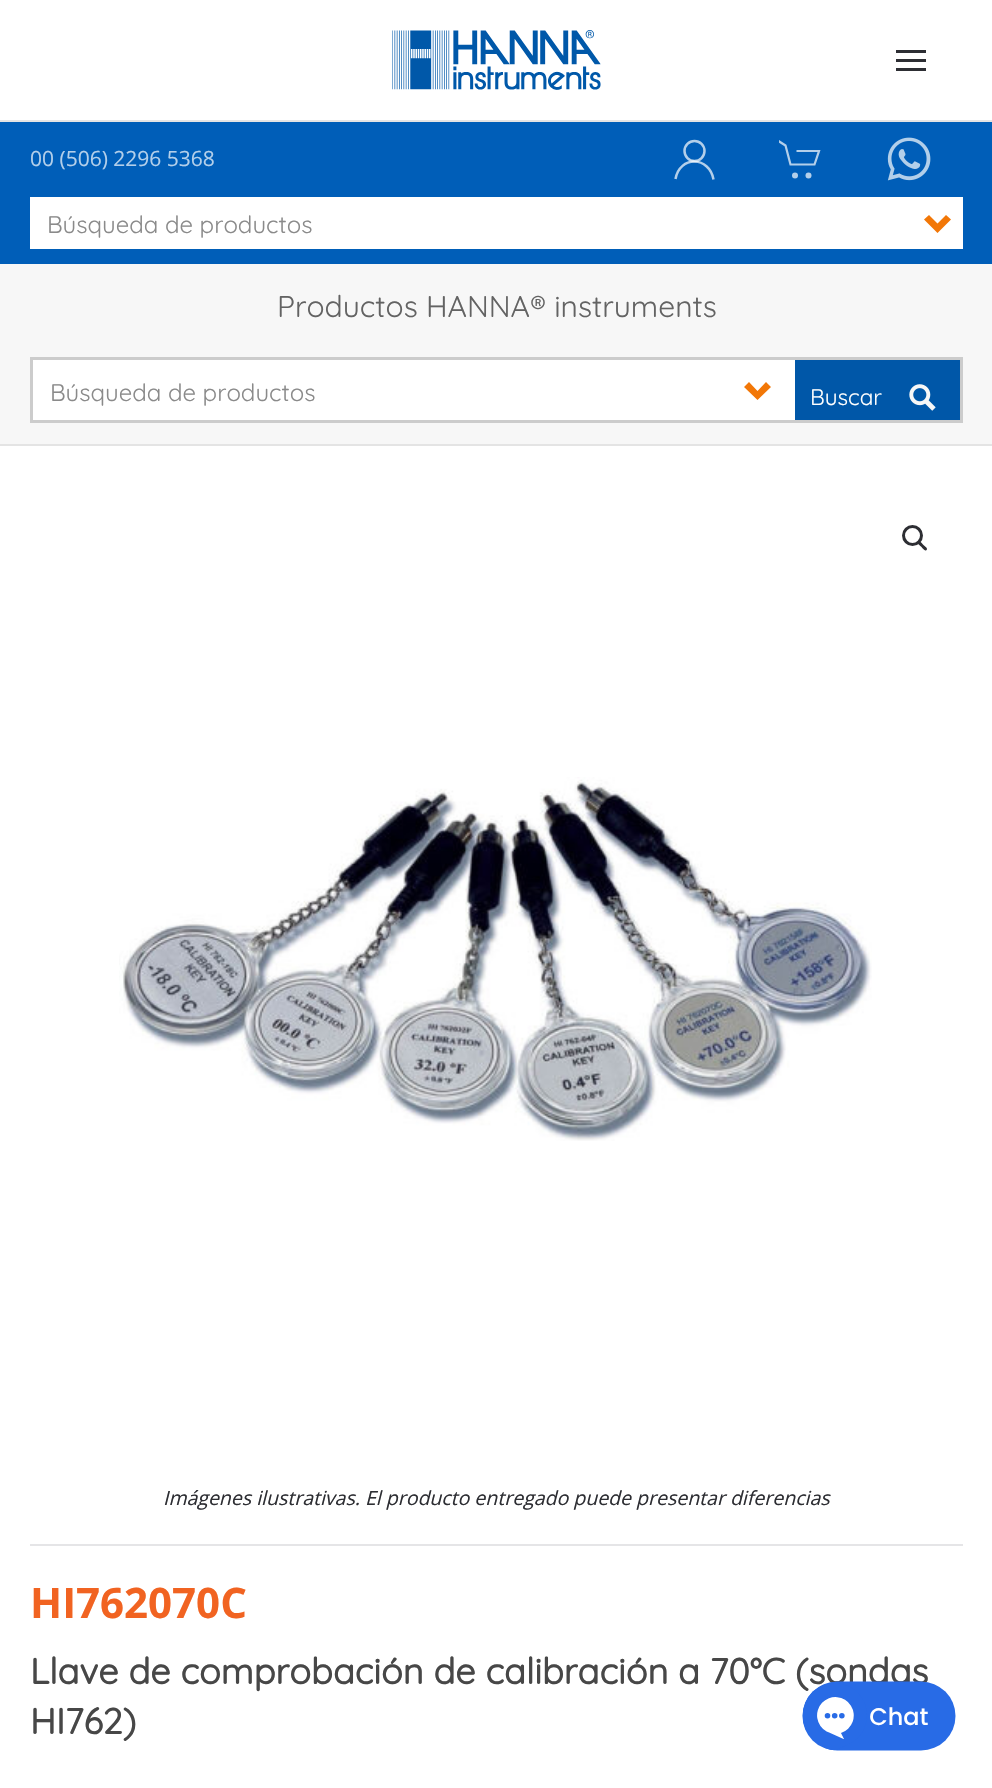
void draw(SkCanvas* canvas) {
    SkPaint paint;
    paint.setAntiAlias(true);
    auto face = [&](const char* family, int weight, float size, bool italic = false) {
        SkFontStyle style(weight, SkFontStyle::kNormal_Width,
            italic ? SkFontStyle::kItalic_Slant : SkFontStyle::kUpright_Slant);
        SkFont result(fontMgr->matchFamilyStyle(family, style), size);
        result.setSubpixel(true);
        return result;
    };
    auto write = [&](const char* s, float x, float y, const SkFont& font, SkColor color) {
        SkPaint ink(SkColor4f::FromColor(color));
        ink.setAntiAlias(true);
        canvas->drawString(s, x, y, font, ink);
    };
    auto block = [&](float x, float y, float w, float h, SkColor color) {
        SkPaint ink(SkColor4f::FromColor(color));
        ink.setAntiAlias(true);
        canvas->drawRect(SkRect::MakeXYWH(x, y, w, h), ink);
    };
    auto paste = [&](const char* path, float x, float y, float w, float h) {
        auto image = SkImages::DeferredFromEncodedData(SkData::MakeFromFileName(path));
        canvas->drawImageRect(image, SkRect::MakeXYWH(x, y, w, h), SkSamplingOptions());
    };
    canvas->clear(SK_ColorWHITE);
    block(0, 120, 992, 2, SkColorSetRGB(228, 228, 228));
    paste("pic1.png", 392, 30, 209, 60);
    block(896, 50, 30, 3, SkColorSetRGB(45, 46, 51));
    block(896, 59, 30, 3, SkColorSetRGB(45, 46, 51));
    block(896, 68, 30, 3, SkColorSetRGB(45, 46, 51));
    block(0, 122, 992, 142, SkColorSetRGB(0, 94, 184));
    auto kFont1 = face("Open Sans", 400, 21);
    write("00 (506) 2296 5368", 30, 166, kFont1, SkColorSetRGB(179, 207, 234));
    paint.setStyle(SkPaint::kStroke_Style);
    paint.setStrokeWidth(2.5f);
    paint.setColor(SkColorSetRGB(179, 207, 234));
    canvas->drawCircle(694.5f, 151, 10, paint);
    paint.setColor(SkColorSetARGB(179, 255, 255, 255));
    canvas->drawPath(SkPathBuilder().moveTo(675.5f, 179).cubicTo(679.5f, 155.5f, 709.5f, 156, 713.5f, 179.5f).detach(), paint);
    canvas->save();
    canvas->clipRect(SkRect::MakeXYWH(779, 137, 45, 45));
    paint.setStrokeWidth(2.2f);
    paint.setColor(SkColorSetRGB(179, 207, 234));
    canvas->drawPath(SkPathBuilder().moveTo(778.5f, 141).lineTo(785.5f, 145.5f).lineTo(790.5f, 164.5f).lineTo(814.5f, 164.5f).lineTo(819, 151).lineTo(796.5f, 151).detach(), paint);
    canvas->restore();
    paint.setStyle(SkPaint::kFill_Style);
    canvas->drawCircle(795, 175.5f, 3, paint);
    canvas->drawCircle(808.5f, 175.5f, 3, paint);
    paste("pic2.png", 887, 137, 44, 44);
    block(30, 197, 933, 52, SK_ColorWHITE);
    auto kFont2 = face("Quicksand", 300, 24);
    write("Búsqueda de productos", 47, 233, kFont2, SkColorSetRGB(138, 138, 138));
    paint.setColor(SkColorSetRGB(242, 119, 7));
    canvas->drawPath(SkPathBuilder().moveTo(924, 219.5f).lineTo(929, 215).lineTo(937.5f, 223.5f).lineTo(946, 215).lineTo(951, 219.5f).lineTo(937.5f, 233).close().detach(), paint);
    block(0, 264, 992, 180, SkColorSetRGB(247, 247, 247));
    block(0, 444, 992, 2, SkColorSetRGB(228, 228, 228));
    auto kFont3 = face("Quicksand", 300, 30);
    write("Productos HANNA® instruments", 277, 317, kFont3, SkColorSetRGB(99, 99, 99));
    block(33, 360, 762, 60, SK_ColorWHITE);
    paint.setStyle(SkPaint::kStroke_Style);
    paint.setStrokeWidth(3);
    paint.setColor(SkColorSetRGB(204, 204, 204));
    canvas->drawRect(SkRect::MakeXYWH(31.5f, 358.5f, 930, 63), paint);
    write("Búsqueda de productos", 50, 401, kFont2, SkColorSetRGB(138, 138, 138));
    paint.setStyle(SkPaint::kFill_Style);
    paint.setColor(SkColorSetRGB(242, 119, 7));
    canvas->drawPath(SkPathBuilder().moveTo(744, 387).lineTo(749, 382).lineTo(757.5f, 391).lineTo(766, 382).lineTo(771, 387).lineTo(757.5f, 400).close().detach(), paint);
    block(795, 360, 165, 60, SkColorSetRGB(0, 87, 168));
    auto kFont4 = face("Quicksand", 300, 22.5f);
    write("Buscar", 810, 405, kFont4, SK_ColorWHITE);
    paste("pic3.png", 909, 384, 27, 27);
    paint.setStyle(SkPaint::kStroke_Style);
    paint.setColor(SkColorSetRGB(45, 46, 51));
    canvas->drawCircle(912.5f, 535.5f, 9, paint);
    paint.setStyle(SkPaint::kFill_Style);
    canvas->drawPath(SkPathBuilder().moveTo(918.5f, 542).cubicTo(920, 540, 922.5f, 544, 923.5f, 545).cubicTo(924.5f, 546, 928.5f, 548.5f, 926.5f, 550).cubicTo(925, 552, 922.5f, 548, 921.5f, 547).cubicTo(920.5f, 546, 916.5f, 543.5f, 918.5f, 542).close().detach(), paint);
    paste("pic4.png", 119, 777, 753, 364);
    auto kFont5 = face("Open Sans", 400, 19.5f, true);
    write("Imágenes ilustrativas. El producto entregado puede presentar diferencias", 163, 1505, kFont5, SkColorSetRGB(45, 46, 51));
    block(30, 1544, 933, 2, SkColorSetRGB(229, 229, 231));
    auto kFont6 = face("Open Sans", 700, 42);
    write("HI762070C", 30, 1618, kFont6, SkColorSetRGB(241, 99, 33));
    auto kFont7 = face("Quicksand", 700, 36);
    write("Llave de comprobación de calibración a 70°C (sondas", 30, 1684, kFont7, SkColorSetRGB(71, 71, 71));
    write("HI762)", 30, 1734, kFont7, SkColorSetRGB(71, 71, 71));
    paste("pic5.png", 802, 1681, 154, 70);
}
